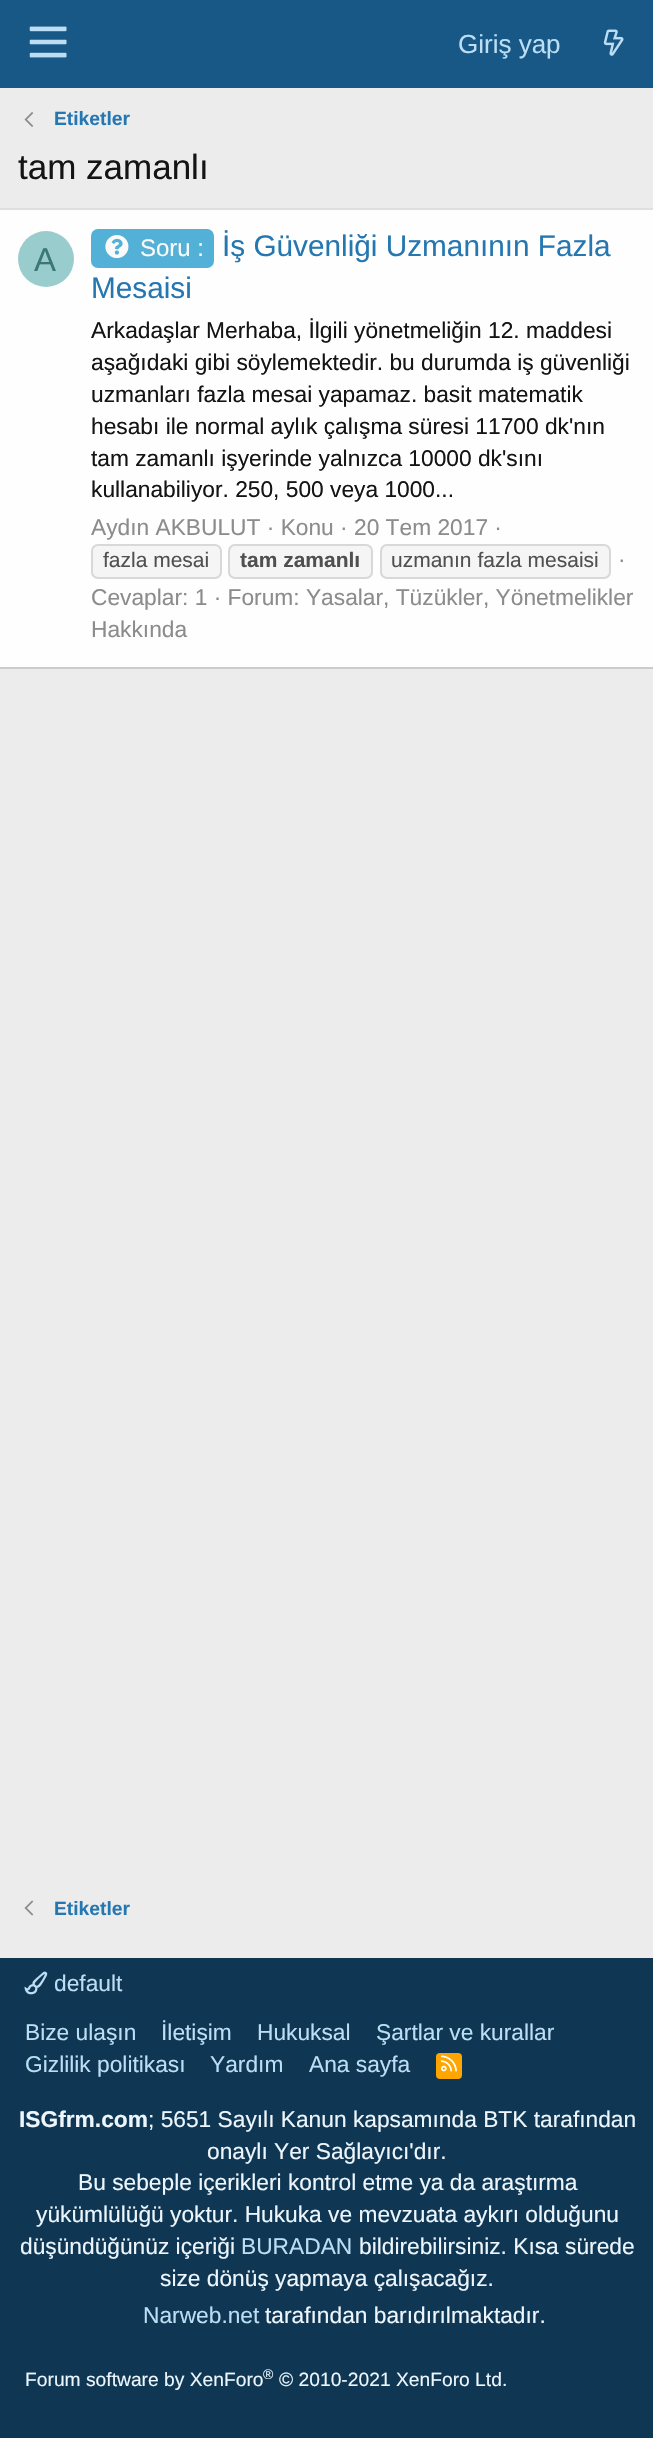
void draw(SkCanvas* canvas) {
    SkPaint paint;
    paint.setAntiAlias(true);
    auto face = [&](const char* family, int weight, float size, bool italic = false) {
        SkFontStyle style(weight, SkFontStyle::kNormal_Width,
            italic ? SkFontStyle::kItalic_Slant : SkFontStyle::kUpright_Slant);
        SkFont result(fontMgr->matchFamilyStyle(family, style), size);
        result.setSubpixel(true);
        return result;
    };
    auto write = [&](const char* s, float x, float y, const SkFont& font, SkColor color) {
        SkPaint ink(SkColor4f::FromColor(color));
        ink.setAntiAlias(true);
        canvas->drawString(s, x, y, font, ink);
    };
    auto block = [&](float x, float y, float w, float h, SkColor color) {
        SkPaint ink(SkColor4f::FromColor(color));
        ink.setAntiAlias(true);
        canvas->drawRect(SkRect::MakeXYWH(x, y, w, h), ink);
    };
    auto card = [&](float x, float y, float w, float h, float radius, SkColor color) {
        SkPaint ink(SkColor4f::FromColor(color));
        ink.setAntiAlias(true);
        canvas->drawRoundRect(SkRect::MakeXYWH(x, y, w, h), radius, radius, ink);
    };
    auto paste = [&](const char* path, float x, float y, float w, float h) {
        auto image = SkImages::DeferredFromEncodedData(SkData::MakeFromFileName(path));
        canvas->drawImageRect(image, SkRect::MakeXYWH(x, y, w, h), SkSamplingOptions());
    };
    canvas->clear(SkColorSetRGB(236, 236, 236));
    block(0, 0, 653, 88, SkColorSetRGB(24, 88, 134));
    paste("pic1.png", 29, 26, 38, 32);
    auto kFont1 = face("Liberation Sans", 400, 26);
    write("Giriş yap", 458, 53, kFont1, SkColorSetRGB(188, 222, 245));
    paste("pic2.png", 603, 29, 21, 27);
    paste("pic3.png", 24, 112, 10, 15);
    auto kFont2 = face("Liberation Sans", 700, 19.25f);
    write("Etiketler", 54, 125, kFont2, SkColorSetRGB(37, 119, 177));
    auto kFont3 = face("Liberation Sans", 400, 35);
    write("tam zamanlı", 18, 179, kFont3, SkColorSetRGB(20, 20, 20));
    block(0, 210, 653, 457, SkColorSetRGB(254, 254, 254));
    block(0, 208, 653, 2, SkColorSetRGB(223, 223, 223));
    block(0, 667, 653, 2, SkColorSetRGB(203, 203, 203));
    paint.setColor(SkColorSetRGB(153, 204, 204));
    canvas->drawCircle(46, 259, 28, paint);
    auto kFont4 = face("Liberation Sans", 400, 33);
    write("A", 34, 271, kFont4, SkColorSetRGB(60, 119, 119));
    card(91, 229, 123, 39, 7, SkColorSetRGB(83, 176, 214));
    paste("pic4.png", 105, 235, 24, 24);
    auto kFont5 = face("Liberation Sans", 400, 24);
    write("Soru :", 140, 256, kFont5, SkColorSetRGB(250, 250, 250));
    auto kFont6 = face("Liberation Sans", 400, 29.75f);
    write("İş Güvenliği Uzmanının Fazla", 222, 256, kFont6, SkColorSetRGB(37, 119, 177));
    write("Mesaisi", 91, 298, kFont6, SkColorSetRGB(37, 119, 177));
    auto kFont7 = face("Liberation Sans", 400, 22.75f);
    write("Arkadaşlar Merhaba, İlgili yönetmeliğin 12. maddesi", 91, 338, kFont7, SkColorSetRGB(20, 20, 20));
    write("aşağıdaki gibi söylemektedir. bu durumda iş güvenliği", 91, 370, kFont7, SkColorSetRGB(20, 20, 20));
    write("uzmanları fazla mesai yapamaz. basit matematik", 91, 402, kFont7, SkColorSetRGB(20, 20, 20));
    write("hesabı ile normal aylık çalışma süresi 11700 dk'nın", 91, 434, kFont7, SkColorSetRGB(20, 20, 20));
    write("tam zamanlı işyerinde yalnızca 10000 dk'sını", 91, 466, kFont7, SkColorSetRGB(20, 20, 20));
    write("kullanabiliyor. 250, 500 veya 1000...", 91, 497, kFont7, SkColorSetRGB(20, 20, 20));
    write("Aydın AKBULUT · Konu · 20 Tem 2017 ·", 91, 535, kFont7, SkColorSetRGB(140, 140, 140));
    paint.setColor(SkColorSetRGB(245, 245, 245));
    canvas->drawRoundRect(SkRect::MakeXYWH(92, 545, 129, 33), 6, 6, paint);
    paint.setStyle(SkPaint::kStroke_Style);
    paint.setStrokeWidth(2);
    paint.setColor(SkColorSetRGB(216, 216, 216));
    canvas->drawRoundRect(SkRect::MakeXYWH(92, 545, 129, 33), 6, 6, paint);
    auto kFont8 = face("Liberation Sans", 400, 21);
    write("fazla mesai", 103, 567, kFont8, SkColorSetRGB(80, 80, 80));
    paint.setStyle(SkPaint::kFill_Style);
    paint.setColor(SkColorSetRGB(245, 245, 245));
    canvas->drawRoundRect(SkRect::MakeXYWH(229, 545, 143, 33), 6, 6, paint);
    paint.setStyle(SkPaint::kStroke_Style);
    paint.setColor(SkColorSetRGB(216, 216, 216));
    canvas->drawRoundRect(SkRect::MakeXYWH(229, 545, 143, 33), 6, 6, paint);
    auto kFont9 = face("Liberation Sans", 700, 21);
    write("tam zamanlı", 240, 567, kFont9, SkColorSetRGB(80, 80, 80));
    paint.setStyle(SkPaint::kFill_Style);
    paint.setColor(SkColorSetRGB(245, 245, 245));
    canvas->drawRoundRect(SkRect::MakeXYWH(381, 545, 229, 33), 6, 6, paint);
    paint.setStyle(SkPaint::kStroke_Style);
    paint.setColor(SkColorSetRGB(216, 216, 216));
    canvas->drawRoundRect(SkRect::MakeXYWH(381, 545, 229, 33), 6, 6, paint);
    write("uzmanın fazla mesaisi", 391, 567, kFont8, SkColorSetRGB(80, 80, 80));
    write("·", 618, 567, kFont7, SkColorSetRGB(140, 140, 140));
    write("Cevaplar: 1 · Forum: Yasalar, Tüzükler, Yönetmelikler", 91, 605, kFont7, SkColorSetRGB(140, 140, 140));
    write("Hakkında", 91, 637, kFont7, SkColorSetRGB(140, 140, 140));
    paste("pic5.png", 24, 1900, 10, 16);
    write("Etiketler", 54, 1915, kFont2, SkColorSetRGB(37, 119, 177));
    block(0, 1958, 653, 480, SkColorSetRGB(15, 54, 82));
    paste("pic6.png", 24, 1971, 24, 24);
    write("default", 54, 1991, kFont7, SkColorSetRGB(188, 222, 245));
    write("Bize ulaşın", 25, 2040, kFont7, SkColorSetRGB(188, 222, 245));
    write("İletişim", 161, 2040, kFont7, SkColorSetRGB(188, 222, 245));
    write("Hukuksal", 257, 2040, kFont7, SkColorSetRGB(188, 222, 245));
    write("Şartlar ve kurallar", 376, 2040, kFont7, SkColorSetRGB(188, 222, 245));
    write("Gizlilik politikası", 25, 2072, kFont7, SkColorSetRGB(188, 222, 245));
    write("Yardım", 210, 2072, kFont7, SkColorSetRGB(188, 222, 245));
    write("Ana sayfa", 309, 2072, kFont7, SkColorSetRGB(188, 222, 245));
    card(436, 2053, 26, 26, 4, SkColorSetRGB(255, 165, 0));
    paste("pic7.png", 441, 2055, 16, 17);
    auto kFont10 = face("Liberation Sans", 700, 22.75f);
    write("ISGfrm.com", 19, 2127, kFont10, SkColorSetRGB(237, 246, 253));
    write("; 5651 Sayılı Kanun kapsamında BTK tarafından", 148, 2127, kFont7, SkColorSetRGB(237, 246, 253));
    write("onaylı Yer Sağlayıcı'dır.", 207, 2159, kFont7, SkColorSetRGB(237, 246, 253));
    write("Bu sebeple içerikleri kontrol etme ya da araştırma", 78, 2190, kFont7, SkColorSetRGB(237, 246, 253));
    write("yükümlülüğü yoktur. Hukuka ve mevzuata aykırı olduğunu", 36, 2222, kFont7, SkColorSetRGB(237, 246, 253));
    write("düşündüğünüz içeriği", 20, 2254, kFont7, SkColorSetRGB(237, 246, 253));
    write("BURADAN", 241, 2254, kFont7, SkColorSetRGB(188, 222, 245));
    write("bildirebilirsiniz. Kısa sürede", 359, 2254, kFont7, SkColorSetRGB(237, 246, 253));
    write("size dönüş yapmaya çalışacağız.", 160, 2286, kFont7, SkColorSetRGB(237, 246, 253));
    write("Narweb.net", 143, 2323, kFont7, SkColorSetRGB(188, 222, 245));
    write("tarafından barıdırılmaktadır.", 265, 2323, kFont7, SkColorSetRGB(237, 246, 253));
    auto kFont11 = face("Liberation Sans", 400, 19.25f);
    write("Forum software by XenForo", 25, 2386, kFont11, SkColorSetRGB(237, 246, 253));
    auto kFont12 = face("Liberation Sans", 400, 14);
    write("®", 263, 2379, kFont12, SkColorSetRGB(237, 246, 253));
    write("© 2010-2021 XenForo Ltd.", 279, 2386, kFont11, SkColorSetRGB(237, 246, 253));
}
